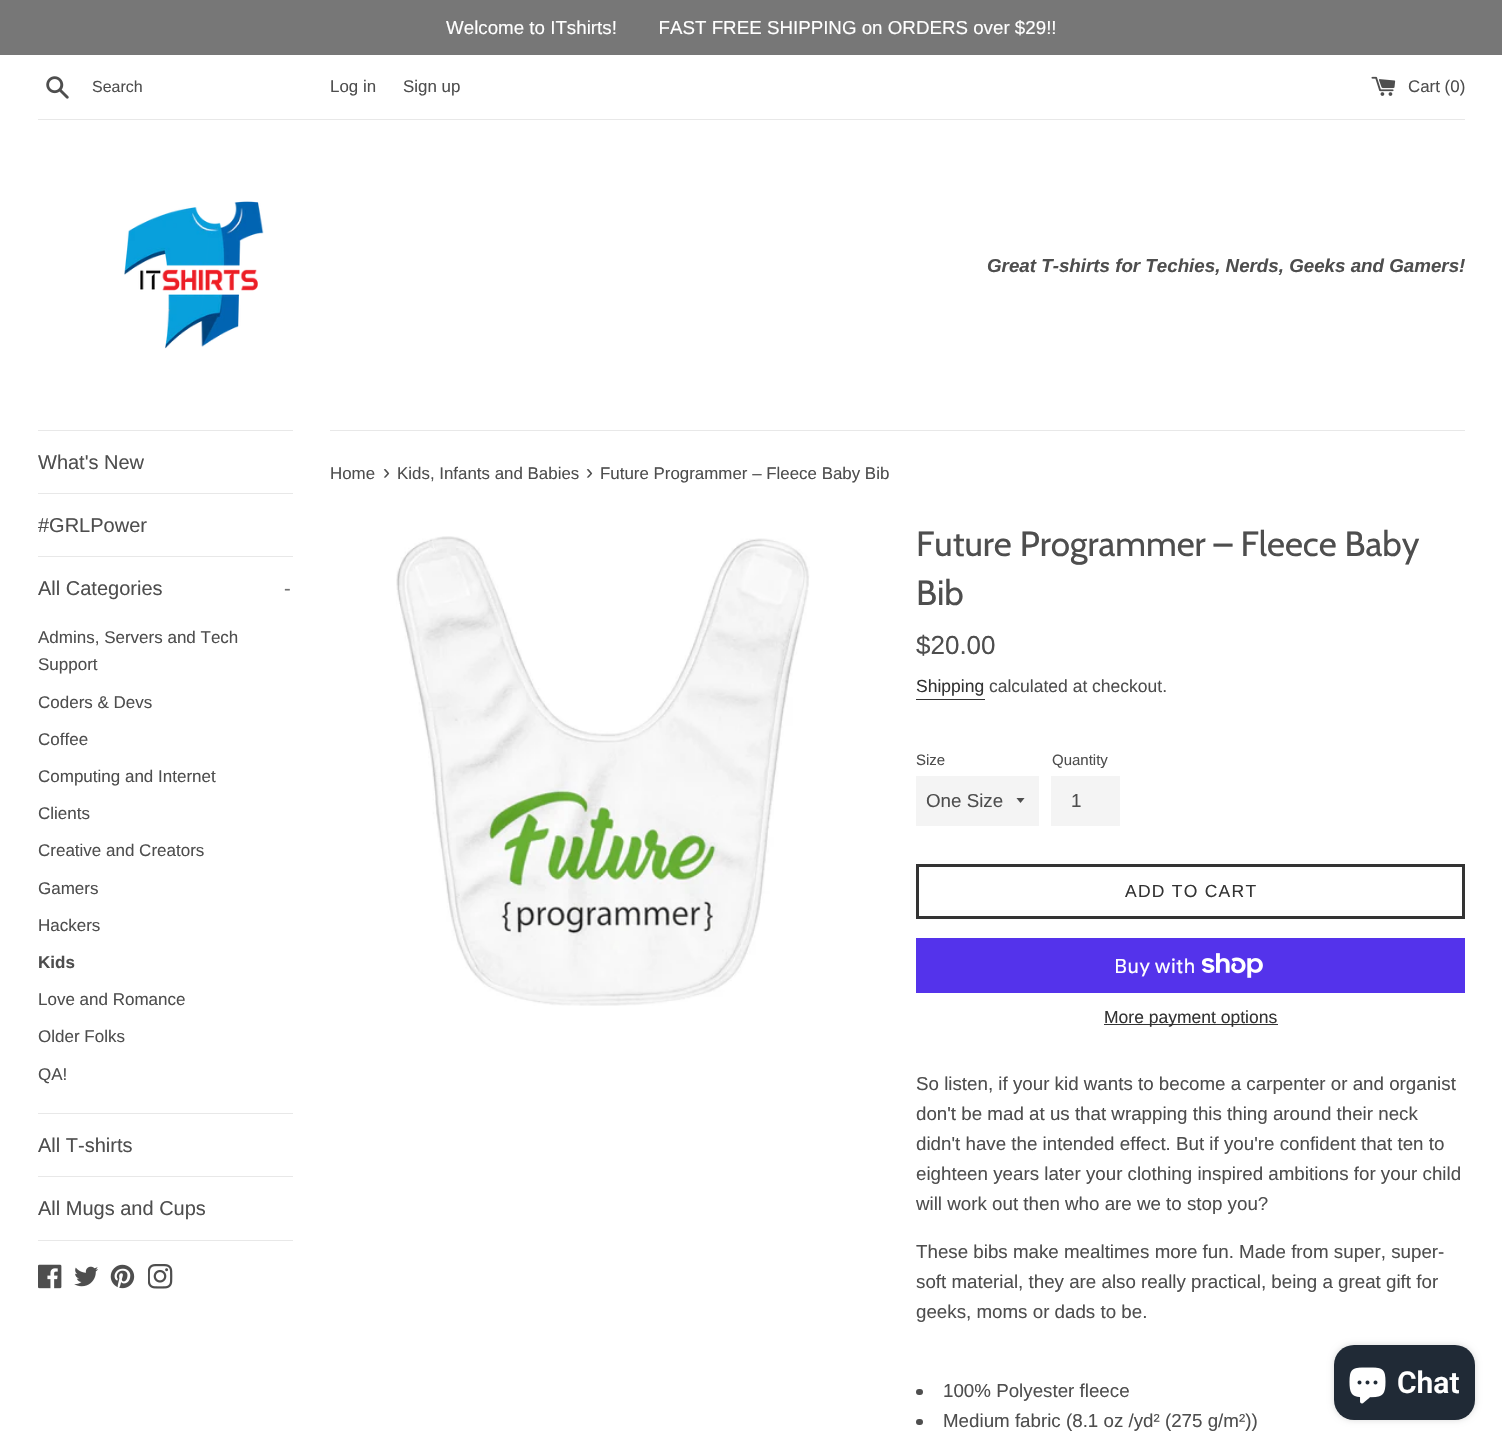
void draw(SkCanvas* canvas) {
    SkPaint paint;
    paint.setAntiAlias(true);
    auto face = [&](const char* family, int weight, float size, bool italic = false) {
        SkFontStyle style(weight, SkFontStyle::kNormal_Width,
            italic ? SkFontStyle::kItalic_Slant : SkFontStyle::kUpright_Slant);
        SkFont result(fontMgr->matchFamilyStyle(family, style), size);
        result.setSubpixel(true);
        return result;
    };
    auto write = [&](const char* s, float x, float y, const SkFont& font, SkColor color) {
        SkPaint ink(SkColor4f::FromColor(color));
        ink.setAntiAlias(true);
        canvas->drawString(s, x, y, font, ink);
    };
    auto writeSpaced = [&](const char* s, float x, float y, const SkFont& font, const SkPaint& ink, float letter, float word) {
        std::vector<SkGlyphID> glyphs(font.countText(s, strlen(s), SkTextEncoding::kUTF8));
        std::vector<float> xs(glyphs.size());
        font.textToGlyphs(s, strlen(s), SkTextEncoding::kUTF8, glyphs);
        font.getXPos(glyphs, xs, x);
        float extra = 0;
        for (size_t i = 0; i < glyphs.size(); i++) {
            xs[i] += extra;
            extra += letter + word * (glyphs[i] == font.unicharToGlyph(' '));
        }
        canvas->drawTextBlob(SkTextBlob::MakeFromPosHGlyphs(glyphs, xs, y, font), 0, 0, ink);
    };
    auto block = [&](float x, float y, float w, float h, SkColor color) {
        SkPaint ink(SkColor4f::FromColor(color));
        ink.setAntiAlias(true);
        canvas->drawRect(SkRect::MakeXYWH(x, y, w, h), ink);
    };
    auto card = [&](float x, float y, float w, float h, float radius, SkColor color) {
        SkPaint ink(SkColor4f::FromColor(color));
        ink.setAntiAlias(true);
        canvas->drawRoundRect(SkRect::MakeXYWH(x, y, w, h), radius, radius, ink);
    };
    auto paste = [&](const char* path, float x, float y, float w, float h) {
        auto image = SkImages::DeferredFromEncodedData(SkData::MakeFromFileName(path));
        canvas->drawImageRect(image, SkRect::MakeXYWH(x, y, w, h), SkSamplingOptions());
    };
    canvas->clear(SK_ColorWHITE);
    block(0, 0, 1502, 55, SkColorSetRGB(119, 119, 119));
    auto kFont1 = face("Liberation Sans", 400, 18.75f);
    write("Welcome to ITshirts!        FAST FREE SHIPPING on ORDERS over $29!!", 446, 34, kFont1, SK_ColorWHITE);
    paste("pic1.png", 46, 76, 23, 23);
    auto kFont2 = face("Liberation Sans", 400, 16);
    write("Search", 92, 92, kFont2, SkColorSetRGB(78, 78, 78));
    auto kFont3 = face("Liberation Sans", 400, 16.9f);
    write("Log in", 330, 92, kFont3, SkColorSetRGB(78, 78, 78));
    write("Sign up", 403, 92, kFont3, SkColorSetRGB(78, 78, 78));
    paste("pic2.png", 1371, 76, 25, 20);
    write("Cart (0)", 1408, 92, kFont3, SkColorSetRGB(78, 78, 78));
    block(38, 119, 1427, 1, SkColorSetRGB(232, 232, 232));
    paste("pic3.png", 124, 201, 140, 148);
    auto kFont4 = face("Liberation Sans", 700, 18.75f, true);
    write("Great T-shirts for Techies, Nerds, Geeks and Gamers!", 987, 272, kFont4, SkColorSetRGB(78, 78, 78));
    block(38, 430, 255, 1, SkColorSetRGB(232, 232, 232));
    block(38, 493, 255, 1, SkColorSetRGB(232, 232, 232));
    auto kFont5 = face("Liberation Sans", 400, 20);
    write("What's New", 38, 469, kFont5, SkColorSetRGB(78, 78, 78));
    block(38, 556, 255, 1, SkColorSetRGB(232, 232, 232));
    write("#GRLPower", 38, 532, kFont5, SkColorSetRGB(78, 78, 78));
    block(38, 1113, 255, 1, SkColorSetRGB(232, 232, 232));
    write("All Categories", 38, 595, kFont5, SkColorSetRGB(78, 78, 78));
    write("-", 284, 595, kFont5, SkColorSetRGB(113, 113, 113));
    auto kFont6 = face("Liberation Sans", 400, 17);
    write("Admins, Servers and Tech", 38, 643, kFont6, SkColorSetRGB(78, 78, 78));
    write("Support", 38, 670, kFont6, SkColorSetRGB(78, 78, 78));
    write("Coders & Devs", 38, 708, kFont6, SkColorSetRGB(78, 78, 78));
    write("Coffee", 38, 745, kFont6, SkColorSetRGB(78, 78, 78));
    write("Computing and Internet", 38, 782, kFont6, SkColorSetRGB(78, 78, 78));
    write("Clients", 38, 819, kFont6, SkColorSetRGB(78, 78, 78));
    write("Creative and Creators", 38, 856, kFont6, SkColorSetRGB(78, 78, 78));
    write("Gamers", 38, 894, kFont6, SkColorSetRGB(78, 78, 78));
    write("Hackers", 38, 931, kFont6, SkColorSetRGB(78, 78, 78));
    auto kFont7 = face("Liberation Sans", 700, 17);
    write("Kids", 38, 968, kFont7, SkColorSetRGB(78, 78, 78));
    write("Love and Romance", 38, 1005, kFont6, SkColorSetRGB(78, 78, 78));
    write("Older Folks", 38, 1042, kFont6, SkColorSetRGB(78, 78, 78));
    write("QA!", 38, 1080, kFont6, SkColorSetRGB(78, 78, 78));
    block(38, 1176, 255, 1, SkColorSetRGB(232, 232, 232));
    write("All T-shirts", 38, 1152, kFont5, SkColorSetRGB(78, 78, 78));
    block(38, 1240, 255, 1, SkColorSetRGB(232, 232, 232));
    write("All Mugs and Cups", 38, 1215, kFont5, SkColorSetRGB(78, 78, 78));
    paste("pic4.png", 38, 1264, 24, 25);
    paste("pic5.png", 74, 1266, 24, 21);
    paste("pic6.png", 110, 1264, 25, 25);
    paste("pic7.png", 148, 1264, 25, 25);
    block(330, 430, 1135, 1, SkColorSetRGB(232, 232, 232));
    write("Home", 330, 479, kFont3, SkColorSetRGB(78, 78, 78));
    auto kFont8 = face("Liberation Sans", 400, 21);
    write("›", 383, 479, kFont8, SkColorSetRGB(78, 78, 78));
    write("Kids, Infants and Babies", 397, 479, kFont3, SkColorSetRGB(78, 78, 78));
    write("›", 586, 479, kFont8, SkColorSetRGB(78, 78, 78));
    write("Future Programmer – Fleece Baby Bib", 600, 479, kFont3, SkColorSetRGB(78, 78, 78));
    paste("pic8.png", 396, 536, 414, 470);
    auto kFont9 = face("Cabin", 400, 35);
    write("Future Programmer – Fleece Baby", 916, 556, kFont9, SkColorSetRGB(78, 78, 78));
    write("Bib", 916, 605, kFont9, SkColorSetRGB(78, 78, 78));
    auto kFont10 = face("Liberation Sans", 400, 26);
    write("$20.00", 916, 654, kFont10, SkColorSetRGB(78, 78, 78));
    auto kFont11 = face("Liberation Sans", 400, 17.5f);
    write("Shipping", 916, 692, kFont11, SkColorSetRGB(51, 51, 51));
    block(916, 699, 69, 1, SkColorSetRGB(51, 51, 51));
    write("calculated at checkout.", 989, 692, kFont11, SkColorSetRGB(78, 78, 78));
    auto kFont12 = face("Liberation Sans", 400, 15);
    write("Size", 916, 765, kFont12, SkColorSetRGB(78, 78, 78));
    block(916, 776, 123, 50, SkColorSetRGB(244, 244, 244));
    canvas->save();
    canvas->clipRect(SkRect::MakeXYWH(1016, 798, 10, 6));
    paint.setColor(SkColorSetRGB(78, 78, 78));
    canvas->drawPath(SkPathBuilder().moveTo(1016, 797.5f).lineTo(1020.5f, 803).lineTo(1025, 797.5f).close().detach(), paint);
    canvas->restore();
    write("One Size", 926, 807, kFont1, SkColorSetRGB(78, 78, 78));
    write("Quantity", 1052, 765, kFont12, SkColorSetRGB(78, 78, 78));
    block(1051, 776, 69, 50, SkColorSetRGB(244, 244, 244));
    write("1", 1071, 807, kFont1, SkColorSetRGB(78, 78, 78));
    paint.setStyle(SkPaint::kStroke_Style);
    paint.setStrokeWidth(3);
    paint.setColor(SkColorSetRGB(51, 51, 51));
    canvas->drawRect(SkRect::MakeXYWH(917.5f, 865.5f, 546, 52), paint);
    paint.setStyle(SkPaint::kFill_Style);
    writeSpaced("ADD TO CART", 1125, 897, kFont11, paint, 1.25f, 0);
    block(916, 938, 549, 55, SkColorSetRGB(84, 51, 235));
    auto kFont13 = face("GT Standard", 400, 20);
    write("Buy with", 1114, 973, kFont13, SK_ColorWHITE);
    paste("pic9.png", 1201, 953, 62, 25);
    block(1104, 1024, 174, 1, SkColorSetRGB(51, 51, 51));
    write("More payment options", 1104, 1023, kFont11, SkColorSetRGB(51, 51, 51));
    write("So listen, if your kid wants to become a carpenter or and organist", 916, 1090, kFont1, SkColorSetRGB(78, 78, 78));
    write("don't be mad at us that wrapping this thing around their neck", 916, 1120, kFont1, SkColorSetRGB(78, 78, 78));
    write("didn't have the intended effect. But if you're confident that ten to", 916, 1150, kFont1, SkColorSetRGB(78, 78, 78));
    write("eighteen years later your clothing inspired ambitions for your child", 916, 1180, kFont1, SkColorSetRGB(78, 78, 78));
    write("will work out then who are we to stop you?", 916, 1210, kFont1, SkColorSetRGB(78, 78, 78));
    write("These bibs make mealtimes more fun. Made from super, super-", 916, 1258, kFont1, SkColorSetRGB(78, 78, 78));
    write("soft material, they are also really practical, being a great gift for", 916, 1288, kFont1, SkColorSetRGB(78, 78, 78));
    write("geeks, moms or dads to be.", 916, 1318, kFont1, SkColorSetRGB(78, 78, 78));
    card(916, 1389, 7, 6, 3, SkColorSetRGB(78, 78, 78));
    write("100% Polyester fleece", 943, 1397, kFont1, SkColorSetRGB(78, 78, 78));
    card(916, 1419, 7, 6, 3, SkColorSetRGB(78, 78, 78));
    write("Medium fabric (8.1 oz /yd² (275 g/m²))", 943, 1427, kFont1, SkColorSetRGB(78, 78, 78));
    paint.setColor(SkColorSetARGB(38, 0, 0, 0));
    paint.setMaskFilter(SkMaskFilter::MakeBlur(kNormal_SkBlurStyle, 3));
    canvas->drawRoundRect(SkRect::MakeXYWH(1334, 1345, 141, 75), 20, 20, paint);
    paint.setMaskFilter(nullptr);
    card(1334, 1345, 141, 75, 20, SkColorSetRGB(32, 42, 54));
    paste("pic10.png", 1349, 1367, 37, 37);
    auto kFont14 = face("Roboto", 600, 30);
    write("Chat", 1397, 1393, kFont14, SK_ColorWHITE);
}
